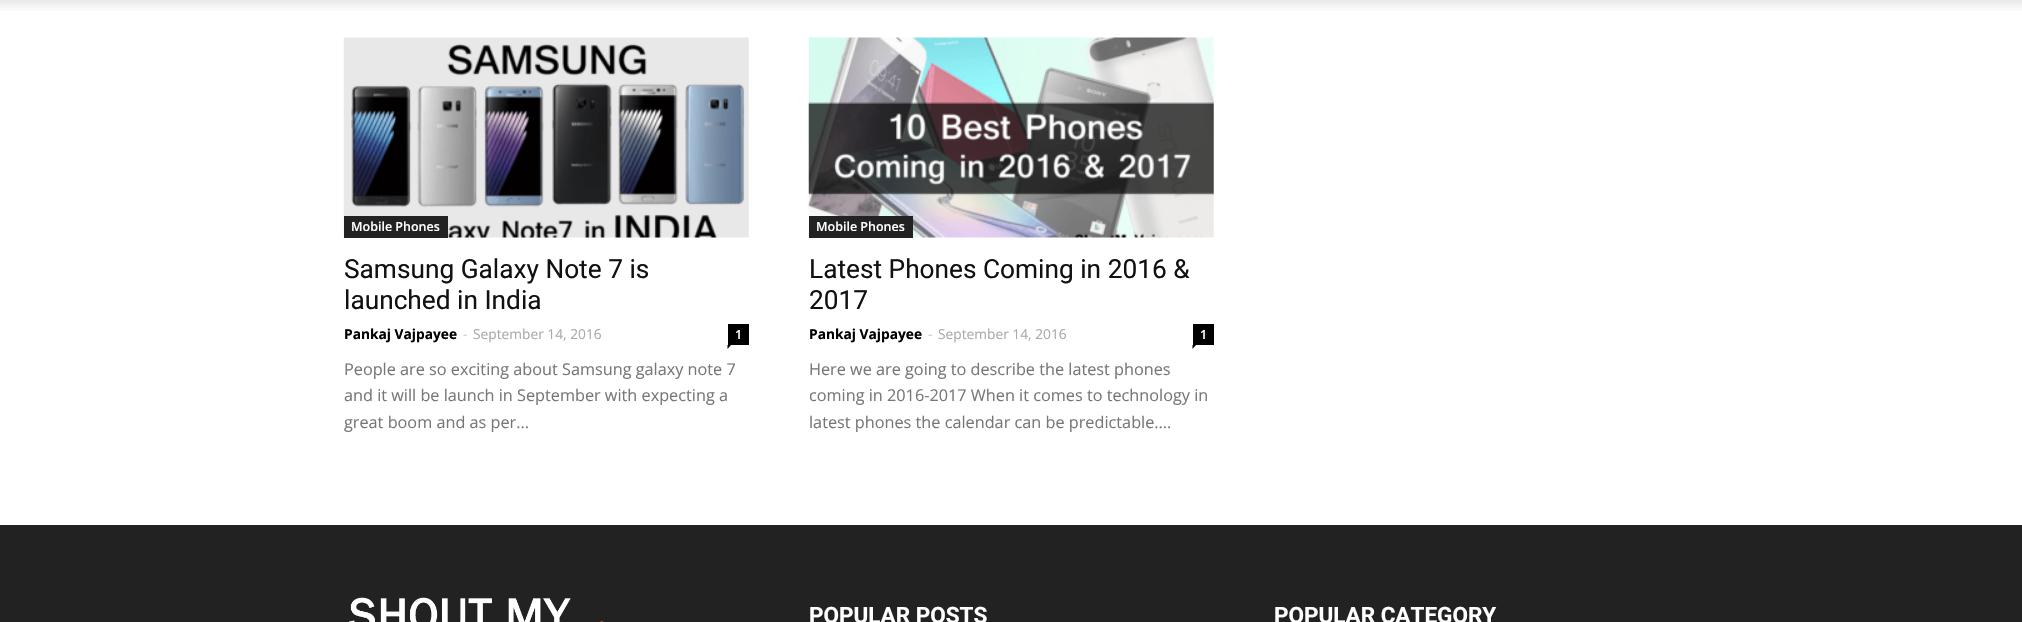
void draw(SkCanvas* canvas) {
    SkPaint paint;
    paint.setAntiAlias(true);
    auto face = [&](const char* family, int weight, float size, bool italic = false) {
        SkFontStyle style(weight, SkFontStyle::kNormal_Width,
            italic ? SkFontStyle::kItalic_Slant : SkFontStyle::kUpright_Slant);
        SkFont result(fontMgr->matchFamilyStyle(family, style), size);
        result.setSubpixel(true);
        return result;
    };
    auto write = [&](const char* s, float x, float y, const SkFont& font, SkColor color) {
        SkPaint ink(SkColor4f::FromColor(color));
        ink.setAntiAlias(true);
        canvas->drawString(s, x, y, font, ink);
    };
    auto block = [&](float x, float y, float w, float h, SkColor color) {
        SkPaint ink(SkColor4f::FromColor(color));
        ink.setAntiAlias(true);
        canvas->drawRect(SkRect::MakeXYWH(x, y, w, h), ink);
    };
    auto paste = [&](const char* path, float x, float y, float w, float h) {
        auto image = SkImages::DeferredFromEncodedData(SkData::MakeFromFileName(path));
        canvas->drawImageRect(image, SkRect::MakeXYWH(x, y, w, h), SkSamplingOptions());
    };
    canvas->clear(SK_ColorWHITE);
    paste("pic1.png", 0, 0, 2022, 11);
    paste("pic2.png", 343, 37, 406, 201);
    block(344, 216, 104, 22, SkColorSetRGB(34, 34, 34));
    auto kFont1 = face("Open Sans", 600, 12.5f);
    write("Mobile Phones", 351, 231, kFont1, SK_ColorWHITE);
    auto kFont2 = face("Roboto", 400, 26.25f);
    write("Samsung Galaxy Note 7 is", 344, 278, kFont2, SkColorSetRGB(17, 17, 17));
    write("launched in India", 344, 309, kFont2, SkColorSetRGB(17, 17, 17));
    auto kFont3 = face("Open Sans", 700, 13.75f);
    write("Pankaj Vajpayee", 344, 339, kFont3, SK_ColorBLACK);
    auto kFont4 = face("Open Sans", 400, 13.75f);
    write("-", 463, 339, kFont4, SkColorSetRGB(204, 204, 204));
    write("September 14, 2016", 473, 339, kFont4, SkColorSetRGB(170, 170, 170));
    block(728, 324, 21, 21, SK_ColorBLACK);
    write("1", 735, 339, kFont1, SK_ColorWHITE);
    paint.setColor(SK_ColorBLACK);
    canvas->drawPath(SkPathBuilder().moveTo(727.5f, 345).lineTo(731, 345).lineTo(727.5f, 349).close().detach(), paint);
    auto kFont5 = face("Open Sans", 400, 16.25f);
    write("People are so exciting about Samsung galaxy note 7", 344, 375, kFont5, SkColorSetRGB(119, 119, 119));
    write("and it will be launch in September with expecting a", 344, 401, kFont5, SkColorSetRGB(119, 119, 119));
    write("great boom and as per...", 344, 428, kFont5, SkColorSetRGB(119, 119, 119));
    paste("pic3.png", 808, 37, 406, 201);
    block(809, 216, 104, 22, SkColorSetRGB(34, 34, 34));
    write("Mobile Phones", 816, 231, kFont1, SK_ColorWHITE);
    write("Latest Phones Coming in 2016 &", 809, 278, kFont2, SkColorSetRGB(17, 17, 17));
    write("2017", 809, 309, kFont2, SkColorSetRGB(17, 17, 17));
    write("Pankaj Vajpayee", 809, 339, kFont3, SK_ColorBLACK);
    write("-", 928, 339, kFont4, SkColorSetRGB(204, 204, 204));
    write("September 14, 2016", 938, 339, kFont4, SkColorSetRGB(170, 170, 170));
    block(1193, 324, 21, 21, SK_ColorBLACK);
    write("1", 1200, 339, kFont1, SK_ColorWHITE);
    canvas->drawPath(SkPathBuilder().moveTo(1192.5f, 345).lineTo(1196, 345).lineTo(1192.5f, 349).close().detach(), paint);
    write("Here we are going to describe the latest phones", 809, 375, kFont5, SkColorSetRGB(119, 119, 119));
    write("coming in 2016-2017 When it comes to technology in", 809, 401, kFont5, SkColorSetRGB(119, 119, 119));
    write("latest phones the calendar can be predictable....", 809, 428, kFont5, SkColorSetRGB(119, 119, 119));
    block(0, 525, 2022, 97, SkColorSetRGB(34, 34, 34));
    paste("pic4.png", 349, 597, 255, 25);
    auto kFont6 = face("Roboto", 700, 22.5f);
    write("POPULAR POSTS", 809, 623, kFont6, SK_ColorWHITE);
    write("POPULAR CATEGORY", 1274, 623, kFont6, SK_ColorWHITE);
}
